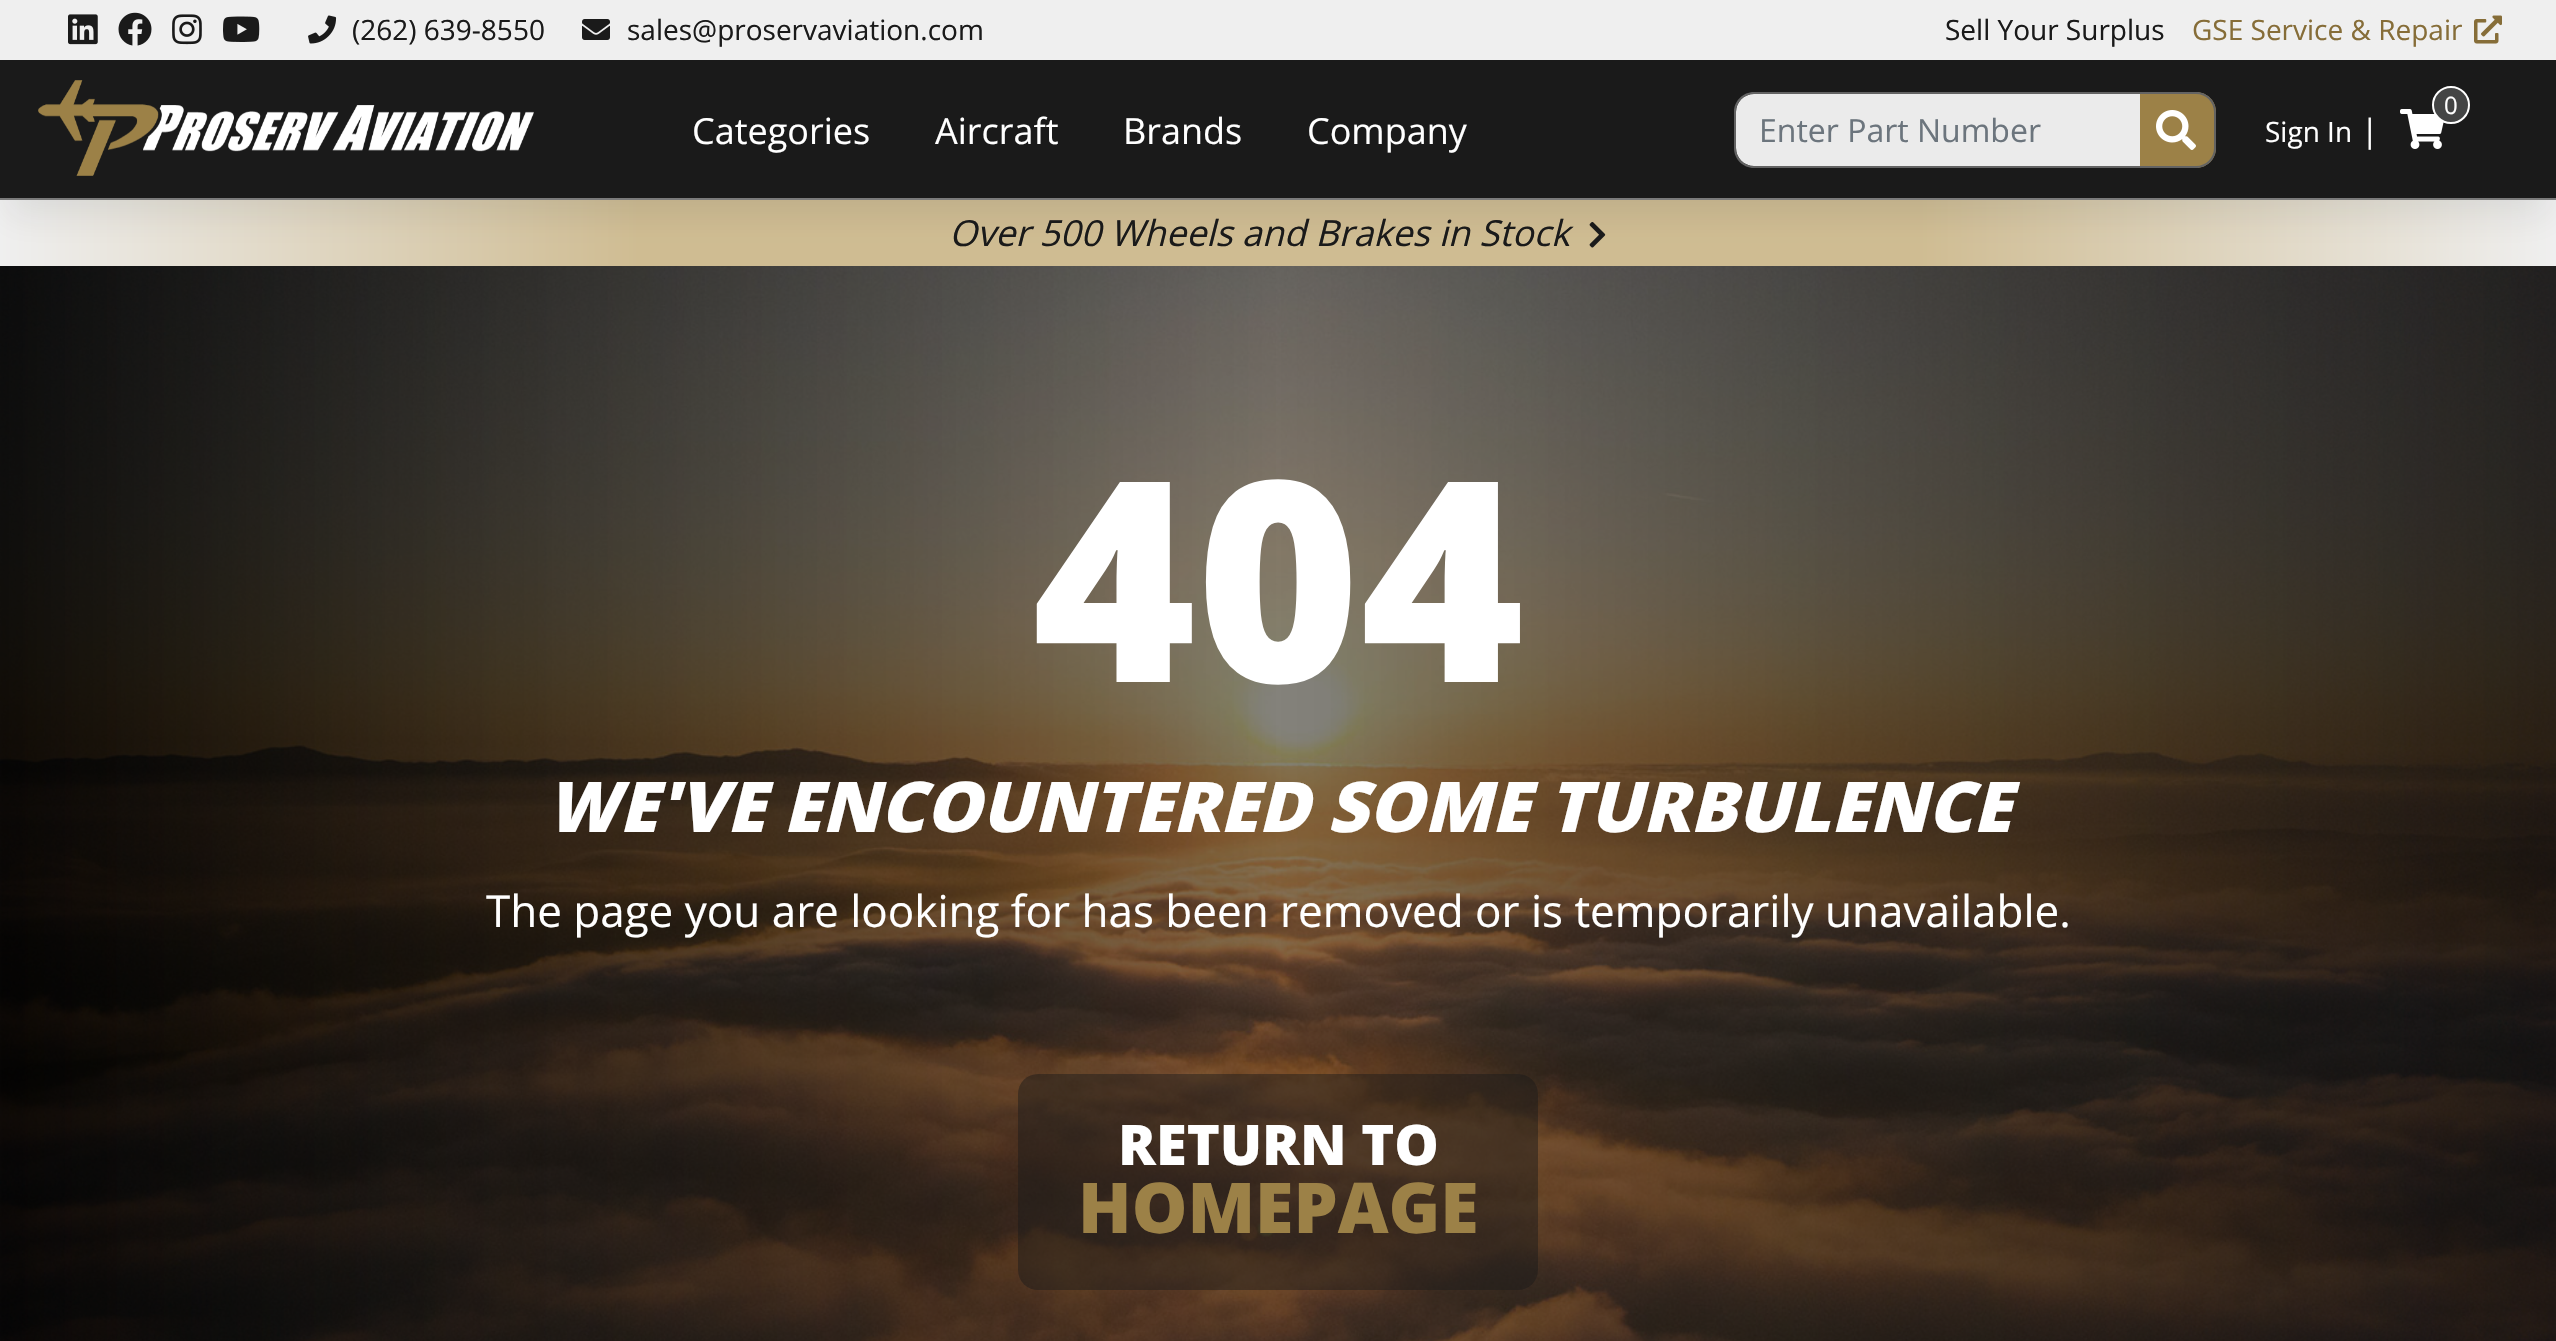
void draw(SkCanvas* canvas) {
    SkPaint paint;
    paint.setAntiAlias(true);
    auto face = [&](const char* family, int weight, float size, bool italic = false) {
        SkFontStyle style(weight, SkFontStyle::kNormal_Width,
            italic ? SkFontStyle::kItalic_Slant : SkFontStyle::kUpright_Slant);
        SkFont result(fontMgr->matchFamilyStyle(family, style), size);
        result.setSubpixel(true);
        return result;
    };
    auto write = [&](const char* s, float x, float y, const SkFont& font, SkColor color) {
        SkPaint ink(SkColor4f::FromColor(color));
        ink.setAntiAlias(true);
        canvas->drawString(s, x, y, font, ink);
    };
    auto block = [&](float x, float y, float w, float h, SkColor color) {
        SkPaint ink(SkColor4f::FromColor(color));
        ink.setAntiAlias(true);
        canvas->drawRect(SkRect::MakeXYWH(x, y, w, h), ink);
    };
    auto card = [&](float x, float y, float w, float h, float radius, SkColor color) {
        SkPaint ink(SkColor4f::FromColor(color));
        ink.setAntiAlias(true);
        canvas->drawRoundRect(SkRect::MakeXYWH(x, y, w, h), radius, radius, ink);
    };
    auto paste = [&](const char* path, float x, float y, float w, float h) {
        auto image = SkImages::DeferredFromEncodedData(SkData::MakeFromFileName(path));
        canvas->drawImageRect(image, SkRect::MakeXYWH(x, y, w, h), SkSamplingOptions());
    };
    canvas->clear(SK_ColorWHITE);
    {
        const SkColor colors[] = {SkColorSetRGB(239, 239, 239), SkColorSetRGB(207, 188, 146), SkColorSetRGB(207, 188, 146), SkColorSetRGB(239, 239, 239)};
        const float stops[] = {0, 0.25f, 0.75f, 1};
        const SkPoint ends[] = {{0, 233}, {2556, 233}};
        paint.setShader(SkGradientShader::MakeLinear(ends, colors, stops, 4, SkTileMode::kClamp));
        paint.setAlpha(255);
    }
    canvas->drawRect(SkRect::MakeXYWH(0, 200, 2556, 66), paint);
    paste("pic11.png", 1589, 222, 17, 26);
    paint.setShader(nullptr);
    paint.setColor(SkColorSetARGB(20, 16, 24, 40));
    paint.setMaskFilter(SkMaskFilter::MakeBlur(kNormal_SkBlurStyle, 16));
    canvas->drawRect(SkRect::MakeXYWH(8, 92, 2540, 124), paint);
    paint.setMaskFilter(nullptr);
    block(0, 0, 2556, 60, SkColorSetRGB(239, 239, 239));
    paste("pic1.png", 68, 14, 30, 31);
    paste("pic2.png", 118, 12, 34, 34);
    paste("pic3.png", 172, 14, 30, 31);
    paste("pic4.png", 223, 16, 37, 26);
    paste("pic5.png", 308, 15, 29, 29);
    auto kFont1 = face("Open Sans", 400, 28);
    write("(262) 639-8550", 352, 40, kFont1, SkColorSetRGB(26, 26, 26));
    paste("pic6.png", 582, 19, 28, 21);
    write("sales@proservaviation.com", 627, 40, kFont1, SkColorSetRGB(26, 26, 26));
    write("Sell Your Surplus", 1945, 40, kFont1, SkColorSetRGB(26, 26, 26));
    write("GSE Service & Repair", 2192, 40, kFont1, SkColorSetRGB(134, 109, 56));
    paste("pic7.png", 2474, 15, 28, 29);
    block(0, 60, 2556, 138, SkColorSetRGB(26, 26, 26));
    block(0, 198, 2556, 2, SkColorSetRGB(123, 123, 123));
    paste("pic8.png", 38, 80, 496, 96);
    auto kFont2 = face("Open Sans", 400, 36);
    write("Categories", 692, 144, kFont2, SK_ColorWHITE);
    write("Aircraft", 935, 144, kFont2, SK_ColorWHITE);
    write("Brands", 1123, 144, kFont2, SK_ColorWHITE);
    write("Company", 1307, 144, kFont2, SK_ColorWHITE);
    paint.setColor(SkColorSetRGB(235, 235, 235));
    canvas->drawPath(SkPathBuilder().moveTo(1754, 94).lineTo(2140, 94).lineTo(2140, 166).lineTo(1754, 166).cubicTo(1744, 166, 1736, 158, 1736, 148).lineTo(1736, 112).cubicTo(1736, 102, 1744, 94, 1754, 94).close().detach(), paint);
    paint.setColor(SkColorSetRGB(99, 99, 99));
    canvas->drawPath(SkPathBuilder(SkPathFillType::kEvenOdd).moveTo(1754, 92).lineTo(2140, 92).lineTo(2140, 168).lineTo(1754, 168).cubicTo(1743, 168, 1734, 159, 1734, 148).lineTo(1734, 112).cubicTo(1734, 101, 1743, 92, 1754, 92).close().moveTo(1754, 94).lineTo(2140, 94).lineTo(2140, 166).lineTo(1754, 166).cubicTo(1744, 166, 1736, 158, 1736, 148).lineTo(1736, 112).cubicTo(1736, 102, 1744, 94, 1754, 94).close().detach(), paint);
    auto kFont3 = face("Open Sans", 400, 32);
    write("Enter Part Number", 1759, 142, kFont3, SkColorSetRGB(108, 117, 125));
    paint.setColor(SkColorSetRGB(156, 129, 71));
    canvas->drawPath(SkPathBuilder().moveTo(2140, 92).lineTo(2196, 92).cubicTo(2207, 92, 2216, 101, 2216, 112).lineTo(2216, 148).cubicTo(2216, 159, 2207, 168, 2196, 168).lineTo(2140, 168).close().detach(), paint);
    paint.setColor(SkColorSetRGB(99, 99, 99));
    canvas->drawPath(SkPathBuilder(SkPathFillType::kEvenOdd).moveTo(2140, 92).lineTo(2196, 92).cubicTo(2207, 92, 2216, 101, 2216, 112).lineTo(2216, 148).cubicTo(2216, 159, 2207, 168, 2196, 168).lineTo(2140, 168).close().moveTo(2140, 94).lineTo(2196, 94).cubicTo(2206, 94, 2214, 102, 2214, 112).lineTo(2214, 148).cubicTo(2214, 158, 2206, 166, 2196, 166).lineTo(2140, 166).close().detach(), paint);
    paste("pic9.png", 2156, 110, 40, 40);
    paste("pic10.png", 2400, 109, 44, 40);
    paint.setColor(SkColorSetRGB(68, 69, 69));
    canvas->drawCircle(2451, 105, 18, paint);
    paint.setStyle(SkPaint::kStroke_Style);
    paint.setStrokeWidth(2);
    paint.setColor(SK_ColorWHITE);
    canvas->drawCircle(2451, 105, 18, paint);
    auto kFont4 = face("Open Sans", 400, 24);
    write("0", 2444, 114, kFont4, SK_ColorWHITE);
    write("Sign In", 2265, 142, kFont1, SK_ColorWHITE);
    write("|", 2361, 142, kFont3, SK_ColorWHITE);
    auto kFont5 = face("Open Sans", 400, 36, true);
    write("Over 500 Wheels and Brakes in Stock", 949, 246, kFont5, SkColorSetRGB(26, 26, 26));
    paste("pic12.png", 0, 266, 2556, 1075);
    auto kFont6 = face("Open Sans", 800, 280);
    write("404", 1032, 682, kFont6, SK_ColorWHITE);
    auto kFont7 = face("Open Sans", 800, 70, true);
    write("WE'VE ENCOUNTERED SOME TURBULENCE", 546, 832, kFont7, SK_ColorWHITE);
    auto kFont8 = face("Open Sans", 400, 44);
    write("The page you are looking for has been removed or is temporarily unavailable.", 486, 927, kFont8, SK_ColorWHITE);
    card(1018, 1074, 520, 216, 20, SkColorSetARGB(117, 25, 25, 25));
    auto kFont9 = face("Open Sans", 800, 56);
    write("RETURN TO", 1118, 1165, kFont9, SK_ColorWHITE);
    auto kFont10 = face("Open Sans", 800, 70);
    write("HOMEPAGE", 1078, 1233, kFont10, SkColorSetRGB(156, 129, 71));
}
